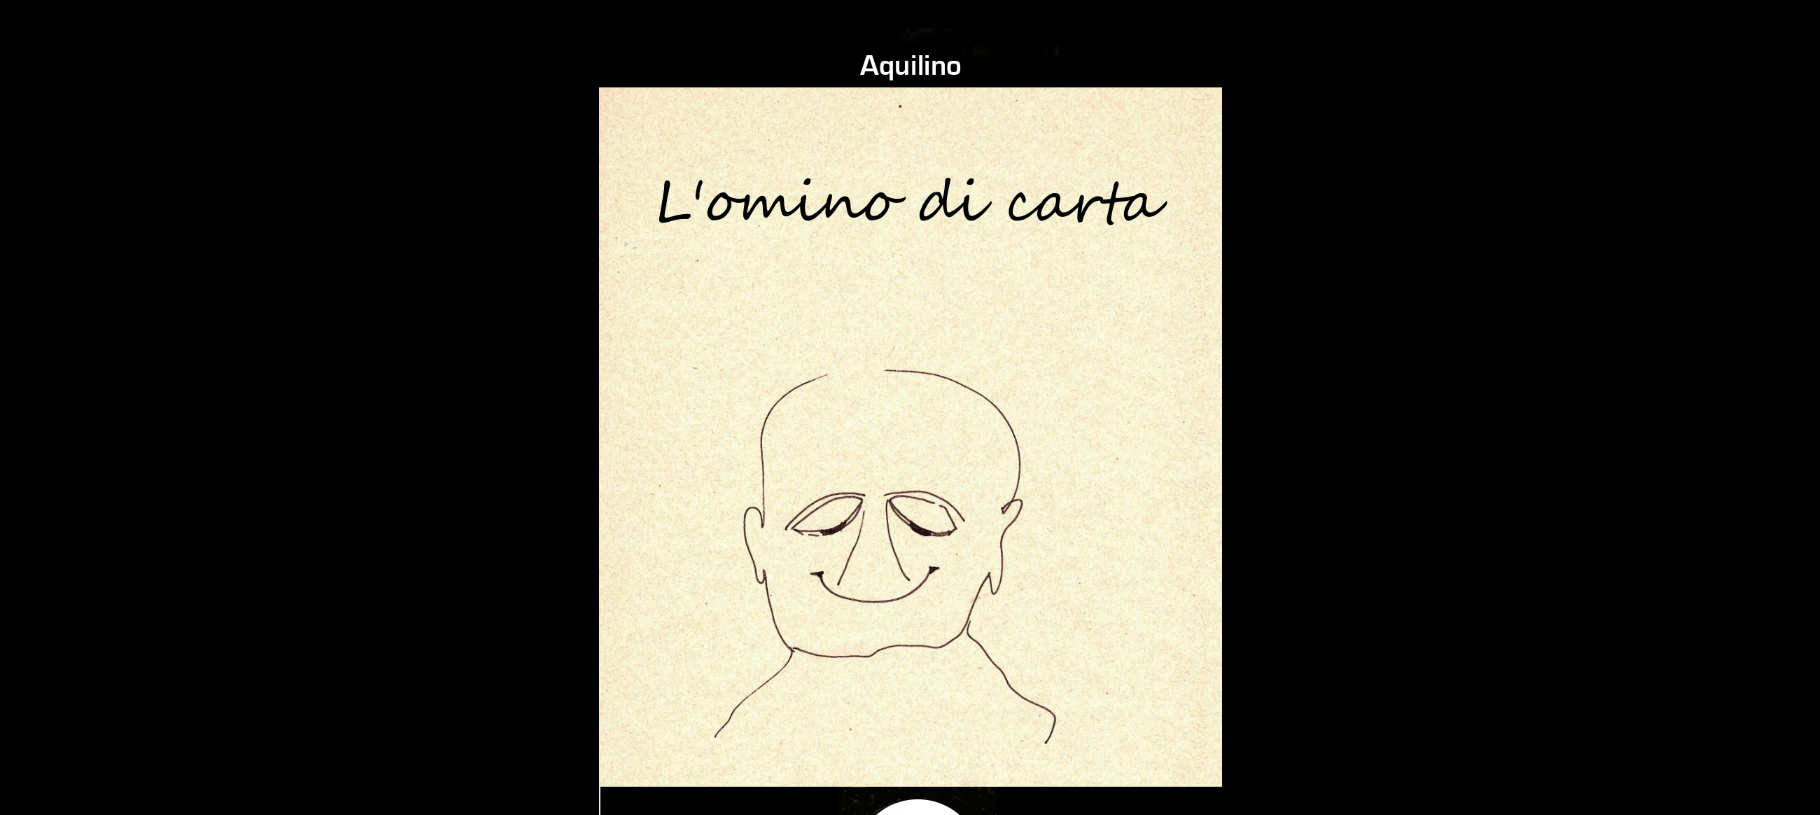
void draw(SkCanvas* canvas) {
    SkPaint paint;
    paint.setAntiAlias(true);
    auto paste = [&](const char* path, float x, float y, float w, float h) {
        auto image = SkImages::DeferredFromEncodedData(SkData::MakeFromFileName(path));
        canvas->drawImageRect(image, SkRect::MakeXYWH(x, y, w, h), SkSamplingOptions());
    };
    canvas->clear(SK_ColorBLACK);
    paste("pic1.png", 599, 27, 623, 788);
}
